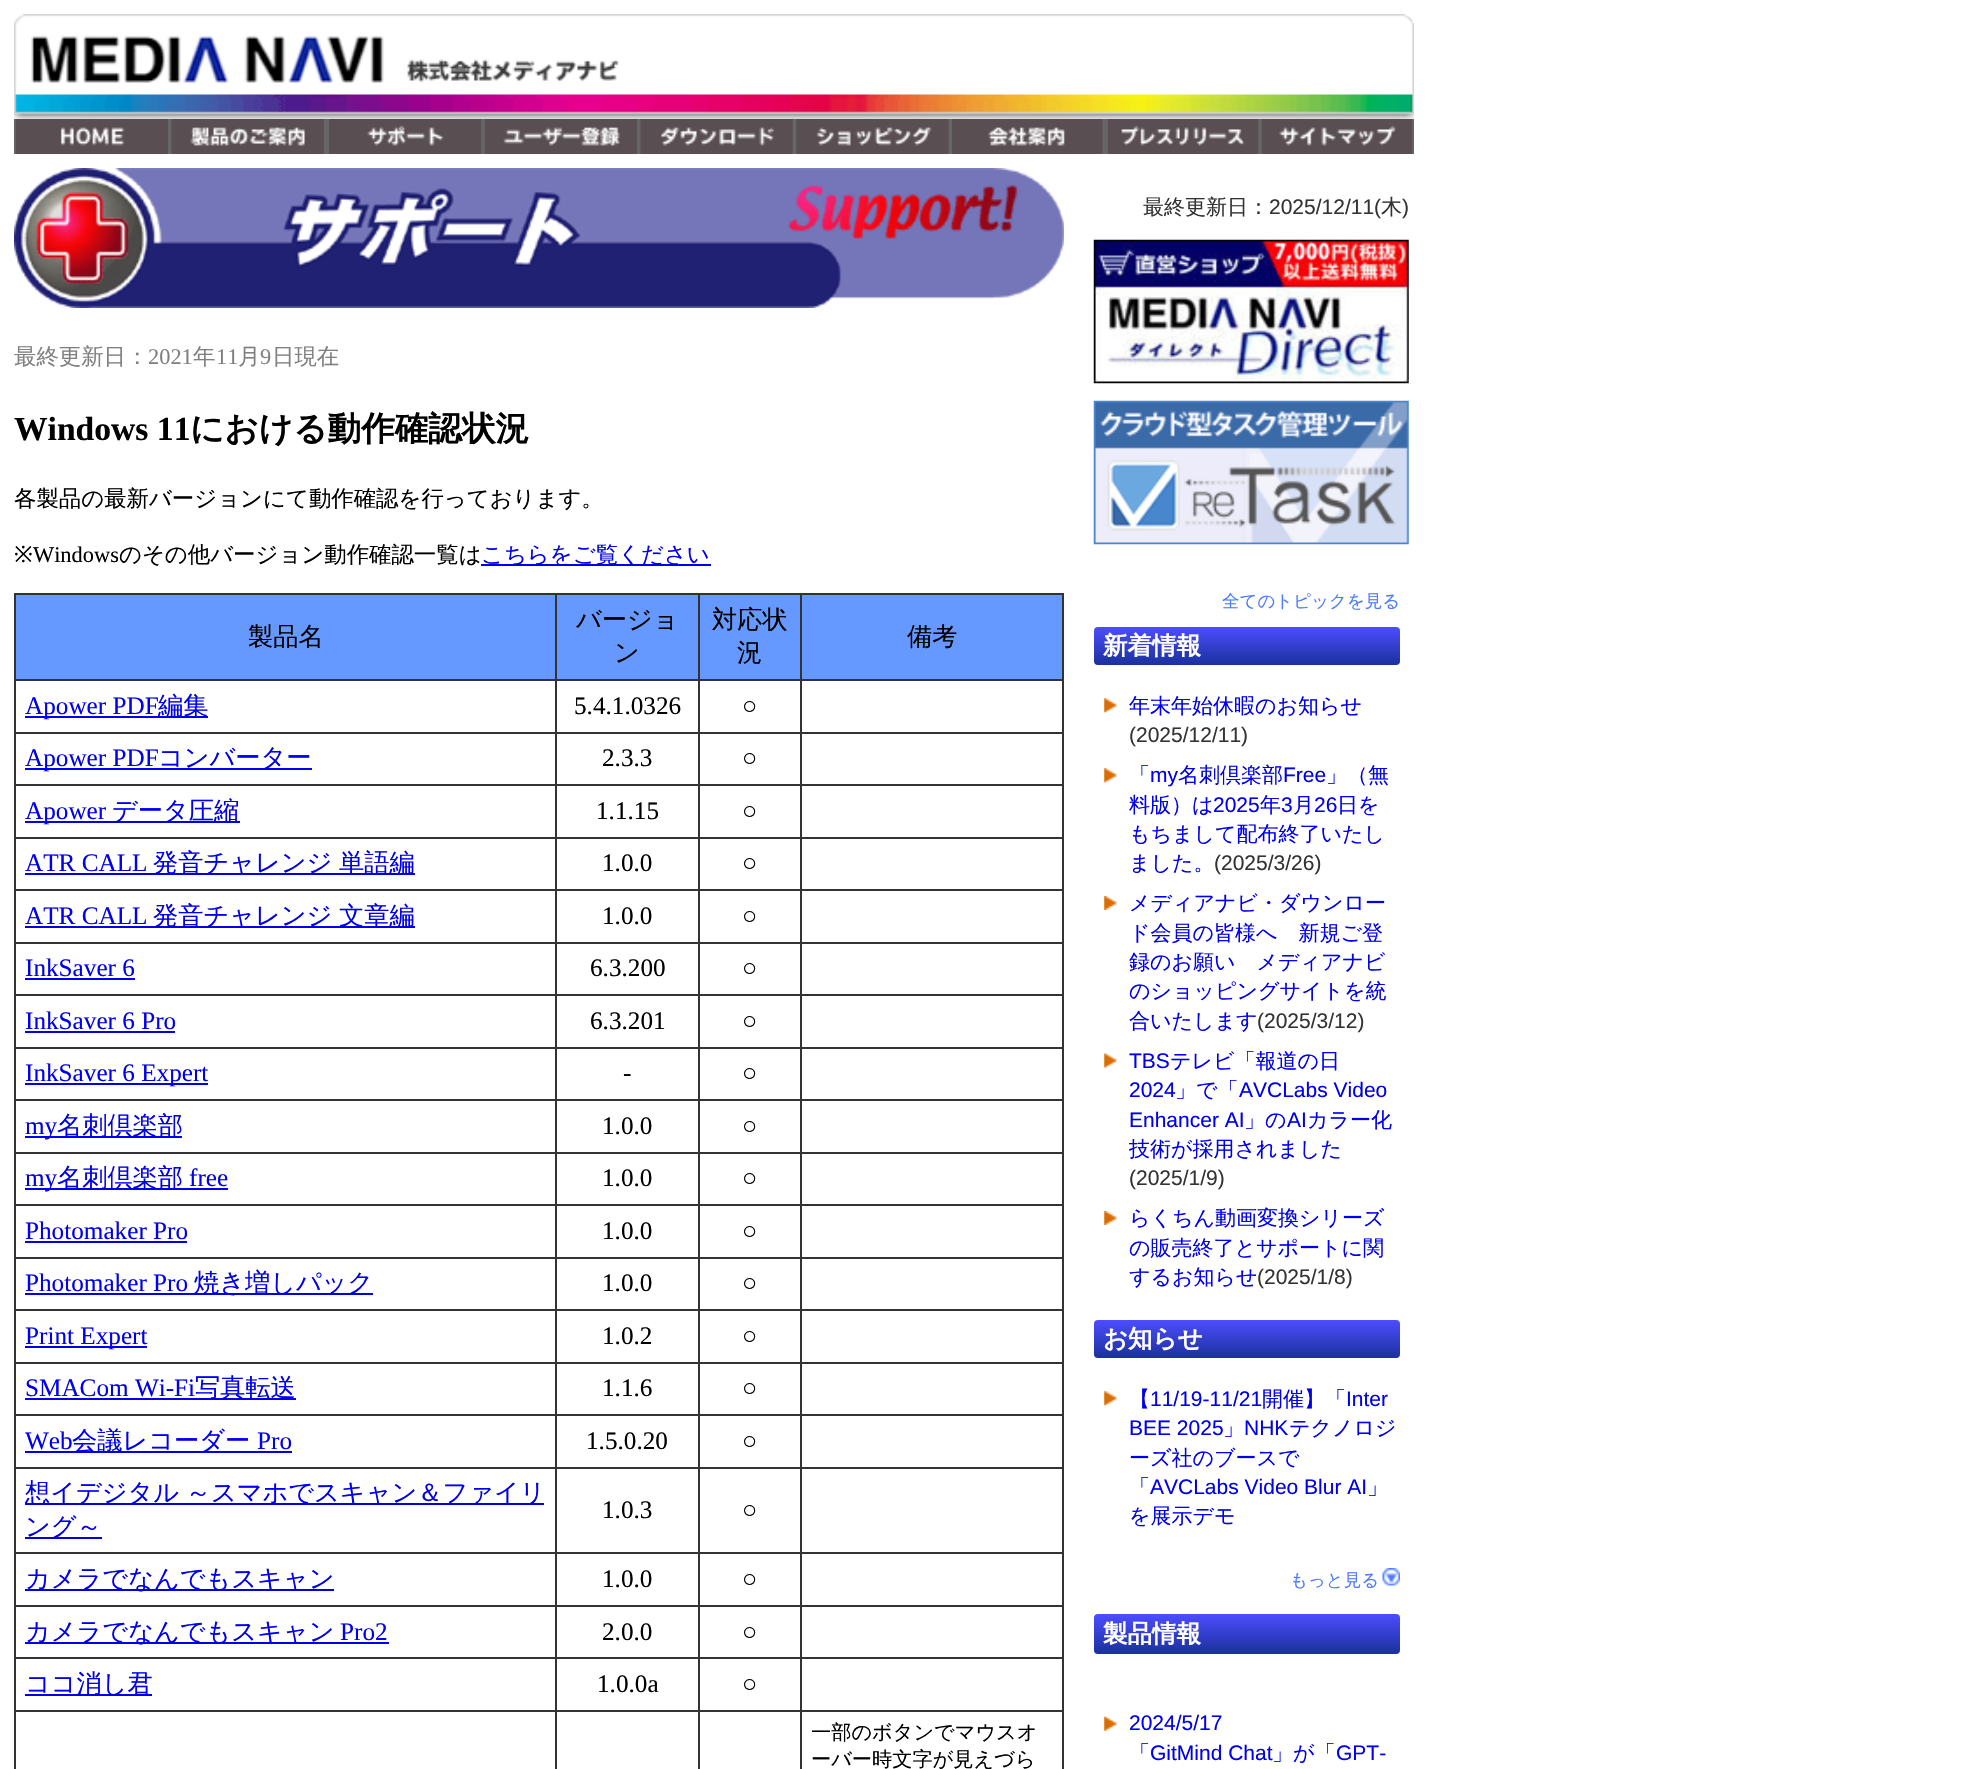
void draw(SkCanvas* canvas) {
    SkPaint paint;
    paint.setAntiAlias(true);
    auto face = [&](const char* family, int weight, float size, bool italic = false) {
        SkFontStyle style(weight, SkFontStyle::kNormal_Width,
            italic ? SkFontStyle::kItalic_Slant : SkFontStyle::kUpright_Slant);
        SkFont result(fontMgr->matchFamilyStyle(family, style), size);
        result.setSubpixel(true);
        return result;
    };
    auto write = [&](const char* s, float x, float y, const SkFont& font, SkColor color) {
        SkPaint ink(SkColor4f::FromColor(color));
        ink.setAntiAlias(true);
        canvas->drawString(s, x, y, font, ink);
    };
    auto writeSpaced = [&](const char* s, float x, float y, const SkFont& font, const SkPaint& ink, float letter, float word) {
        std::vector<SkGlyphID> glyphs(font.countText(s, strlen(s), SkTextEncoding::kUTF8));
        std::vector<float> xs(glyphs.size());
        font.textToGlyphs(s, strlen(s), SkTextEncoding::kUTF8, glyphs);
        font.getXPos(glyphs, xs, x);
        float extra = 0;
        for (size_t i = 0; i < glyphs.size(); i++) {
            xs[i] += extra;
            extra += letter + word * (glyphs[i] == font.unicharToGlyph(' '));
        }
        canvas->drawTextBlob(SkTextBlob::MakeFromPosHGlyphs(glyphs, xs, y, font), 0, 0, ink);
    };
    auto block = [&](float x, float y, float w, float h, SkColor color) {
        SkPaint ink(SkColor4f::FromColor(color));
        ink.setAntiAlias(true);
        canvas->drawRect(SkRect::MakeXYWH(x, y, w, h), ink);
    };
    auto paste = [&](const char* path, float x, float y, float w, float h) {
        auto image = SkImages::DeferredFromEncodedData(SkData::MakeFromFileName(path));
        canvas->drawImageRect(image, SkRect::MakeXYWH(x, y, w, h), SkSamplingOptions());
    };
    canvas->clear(SK_ColorWHITE);
    paste("pic1.png", 14, 14, 1400, 105);
    block(14, 119, 1400, 35, SkColorSetRGB(102, 102, 102));
    paste("pic2.png", 15, 119, 153, 35);
    paste("pic3.png", 171, 119, 153, 35);
    paste("pic4.png", 329, 119, 153, 35);
    paste("pic5.png", 484, 119, 153, 35);
    paste("pic6.png", 640, 119, 153, 35);
    paste("pic7.png", 796, 119, 153, 35);
    paste("pic8.png", 952, 119, 151, 35);
    paste("pic9.png", 1107, 119, 152, 35);
    paste("pic10.png", 1261, 119, 152, 35);
    paste("pic11.png", 14, 168, 1050, 140);
    auto kFont1 = face("WenQuanYi Zen Hei", 500, 22.4f);
    write("最終更新日：", 14, 364, kFont1, SkColorSetRGB(128, 128, 128));
    auto kFont2 = face("Liberation Serif", 400, 22.4f);
    write("2021", 148, 364, kFont2, SkColorSetRGB(128, 128, 128));
    write("年", 193, 364, kFont1, SkColorSetRGB(128, 128, 128));
    write("11", 216, 364, kFont2, SkColorSetRGB(128, 128, 128));
    write("月", 238, 364, kFont1, SkColorSetRGB(128, 128, 128));
    write("9", 260, 364, kFont2, SkColorSetRGB(128, 128, 128));
    write("日現在", 272, 364, kFont1, SkColorSetRGB(128, 128, 128));
    auto kFont3 = face("Liberation Serif", 700, 33.6f);
    write("Windows 11", 14, 440, kFont3, SK_ColorBLACK);
    auto kFont4 = face("WenQuanYi Zen Hei", 700, 33.6f);
    write("における動作確認状況", 190, 440, kFont4, SK_ColorBLACK);
    write("各製品の最新バージョンにて動作確認を行っております。", 14, 506, kFont1, SK_ColorBLACK);
    auto kFont5 = face("Noto Sans", 400, 22.4f);
    write("※", 14, 562, kFont5, SK_ColorBLACK);
    write("Windows", 33, 562, kFont2, SK_ColorBLACK);
    write("のその他バージョン動作確認一覧は", 119, 562, kFont1, SK_ColorBLACK);
    block(481, 564, 230, 2, SkColorSetRGB(0, 0, 238));
    write("こちらをご覧ください", 481, 562, kFont1, SkColorSetRGB(0, 0, 238));
    block(14, 593, 1050, 2, SkColorSetRGB(51, 51, 51));
    block(1062, 593, 2, 1176, SkColorSetRGB(51, 51, 51));
    block(14, 593, 2, 1176, SkColorSetRGB(51, 51, 51));
    block(16, 595, 539, 84, SkColorSetRGB(102, 153, 255));
    auto kFont6 = face("WenQuanYi Zen Hei", 500, 25.2f);
    write("製品名", 248, 645, kFont6, SK_ColorBLACK);
    block(557, 595, 141, 84, SkColorSetRGB(102, 153, 255));
    block(800, 679, 264, 2, SkColorSetRGB(51, 51, 51));
    block(800, 732, 264, 2, SkColorSetRGB(51, 51, 51));
    block(800, 784, 264, 2, SkColorSetRGB(51, 51, 51));
    block(800, 837, 264, 2, SkColorSetRGB(51, 51, 51));
    block(800, 889, 264, 2, SkColorSetRGB(51, 51, 51));
    block(800, 942, 264, 2, SkColorSetRGB(51, 51, 51));
    block(800, 994, 264, 2, SkColorSetRGB(51, 51, 51));
    block(800, 1047, 264, 2, SkColorSetRGB(51, 51, 51));
    block(800, 1099, 264, 2, SkColorSetRGB(51, 51, 51));
    block(800, 1152, 264, 2, SkColorSetRGB(51, 51, 51));
    block(800, 1204, 264, 2, SkColorSetRGB(51, 51, 51));
    block(800, 1257, 264, 2, SkColorSetRGB(51, 51, 51));
    block(800, 1309, 264, 2, SkColorSetRGB(51, 51, 51));
    block(800, 1362, 264, 2, SkColorSetRGB(51, 51, 51));
    block(800, 1414, 264, 2, SkColorSetRGB(51, 51, 51));
    block(800, 1467, 264, 2, SkColorSetRGB(51, 51, 51));
    block(800, 1552, 264, 2, SkColorSetRGB(51, 51, 51));
    block(800, 1605, 264, 2, SkColorSetRGB(51, 51, 51));
    block(800, 1657, 264, 2, SkColorSetRGB(51, 51, 51));
    block(800, 1710, 264, 2, SkColorSetRGB(51, 51, 51));
    block(800, 1710, 2, 59, SkColorSetRGB(51, 51, 51));
    block(698, 1710, 104, 2, SkColorSetRGB(51, 51, 51));
    block(800, 1657, 2, 55, SkColorSetRGB(51, 51, 51));
    block(698, 1657, 104, 2, SkColorSetRGB(51, 51, 51));
    block(800, 1605, 2, 54, SkColorSetRGB(51, 51, 51));
    block(698, 1605, 104, 2, SkColorSetRGB(51, 51, 51));
    block(800, 1552, 2, 55, SkColorSetRGB(51, 51, 51));
    block(698, 1552, 104, 2, SkColorSetRGB(51, 51, 51));
    block(800, 1467, 2, 87, SkColorSetRGB(51, 51, 51));
    block(698, 1467, 104, 2, SkColorSetRGB(51, 51, 51));
    block(800, 1414, 2, 54, SkColorSetRGB(51, 51, 51));
    block(698, 1414, 104, 2, SkColorSetRGB(51, 51, 51));
    block(800, 1362, 2, 54, SkColorSetRGB(51, 51, 51));
    block(698, 1362, 104, 2, SkColorSetRGB(51, 51, 51));
    block(800, 1309, 2, 54, SkColorSetRGB(51, 51, 51));
    block(698, 1309, 104, 2, SkColorSetRGB(51, 51, 51));
    block(800, 1257, 2, 54, SkColorSetRGB(51, 51, 51));
    block(698, 1257, 104, 2, SkColorSetRGB(51, 51, 51));
    block(800, 1204, 2, 54, SkColorSetRGB(51, 51, 51));
    block(698, 1204, 104, 2, SkColorSetRGB(51, 51, 51));
    block(800, 1152, 2, 54, SkColorSetRGB(51, 51, 51));
    block(698, 1152, 104, 2, SkColorSetRGB(51, 51, 51));
    block(800, 1099, 2, 54, SkColorSetRGB(51, 51, 51));
    block(698, 1099, 104, 2, SkColorSetRGB(51, 51, 51));
    block(800, 1047, 2, 54, SkColorSetRGB(51, 51, 51));
    block(698, 1047, 104, 2, SkColorSetRGB(51, 51, 51));
    block(800, 994, 2, 54, SkColorSetRGB(51, 51, 51));
    block(698, 994, 104, 2, SkColorSetRGB(51, 51, 51));
    block(800, 942, 2, 54, SkColorSetRGB(51, 51, 51));
    block(698, 942, 104, 2, SkColorSetRGB(51, 51, 51));
    block(800, 889, 2, 54, SkColorSetRGB(51, 51, 51));
    block(698, 889, 104, 2, SkColorSetRGB(51, 51, 51));
    block(800, 837, 2, 54, SkColorSetRGB(51, 51, 51));
    block(698, 837, 104, 2, SkColorSetRGB(51, 51, 51));
    block(800, 784, 2, 54, SkColorSetRGB(51, 51, 51));
    block(698, 784, 104, 2, SkColorSetRGB(51, 51, 51));
    block(800, 732, 2, 54, SkColorSetRGB(51, 51, 51));
    block(698, 732, 104, 2, SkColorSetRGB(51, 51, 51));
    block(800, 679, 2, 54, SkColorSetRGB(51, 51, 51));
    block(698, 679, 104, 2, SkColorSetRGB(51, 51, 51));
    block(698, 1710, 2, 59, SkColorSetRGB(51, 51, 51));
    block(555, 1710, 145, 2, SkColorSetRGB(51, 51, 51));
    block(698, 1657, 2, 55, SkColorSetRGB(51, 51, 51));
    block(555, 1657, 145, 2, SkColorSetRGB(51, 51, 51));
    block(698, 1605, 2, 54, SkColorSetRGB(51, 51, 51));
    block(555, 1605, 145, 2, SkColorSetRGB(51, 51, 51));
    block(698, 1552, 2, 55, SkColorSetRGB(51, 51, 51));
    block(555, 1552, 145, 2, SkColorSetRGB(51, 51, 51));
    block(698, 1467, 2, 87, SkColorSetRGB(51, 51, 51));
    block(555, 1467, 145, 2, SkColorSetRGB(51, 51, 51));
    block(698, 1414, 2, 54, SkColorSetRGB(51, 51, 51));
    block(555, 1414, 145, 2, SkColorSetRGB(51, 51, 51));
    block(698, 1362, 2, 54, SkColorSetRGB(51, 51, 51));
    block(555, 1362, 145, 2, SkColorSetRGB(51, 51, 51));
    block(698, 1309, 2, 54, SkColorSetRGB(51, 51, 51));
    block(555, 1309, 145, 2, SkColorSetRGB(51, 51, 51));
    block(698, 1257, 2, 54, SkColorSetRGB(51, 51, 51));
    block(555, 1257, 145, 2, SkColorSetRGB(51, 51, 51));
    block(698, 1204, 2, 54, SkColorSetRGB(51, 51, 51));
    block(555, 1204, 145, 2, SkColorSetRGB(51, 51, 51));
    block(698, 1152, 2, 54, SkColorSetRGB(51, 51, 51));
    block(555, 1152, 145, 2, SkColorSetRGB(51, 51, 51));
    block(698, 1099, 2, 54, SkColorSetRGB(51, 51, 51));
    block(555, 1099, 145, 2, SkColorSetRGB(51, 51, 51));
    block(698, 1047, 2, 54, SkColorSetRGB(51, 51, 51));
    block(555, 1047, 145, 2, SkColorSetRGB(51, 51, 51));
    block(698, 994, 2, 54, SkColorSetRGB(51, 51, 51));
    block(555, 994, 145, 2, SkColorSetRGB(51, 51, 51));
    block(698, 942, 2, 54, SkColorSetRGB(51, 51, 51));
    block(555, 942, 145, 2, SkColorSetRGB(51, 51, 51));
    block(698, 889, 2, 54, SkColorSetRGB(51, 51, 51));
    block(555, 889, 145, 2, SkColorSetRGB(51, 51, 51));
    block(698, 837, 2, 54, SkColorSetRGB(51, 51, 51));
    block(555, 837, 145, 2, SkColorSetRGB(51, 51, 51));
    block(698, 784, 2, 54, SkColorSetRGB(51, 51, 51));
    block(555, 784, 145, 2, SkColorSetRGB(51, 51, 51));
    block(698, 732, 2, 54, SkColorSetRGB(51, 51, 51));
    block(555, 732, 145, 2, SkColorSetRGB(51, 51, 51));
    block(698, 679, 2, 54, SkColorSetRGB(51, 51, 51));
    block(555, 679, 145, 2, SkColorSetRGB(51, 51, 51));
    block(555, 1710, 2, 59, SkColorSetRGB(51, 51, 51));
    block(14, 1710, 543, 2, SkColorSetRGB(51, 51, 51));
    block(555, 1657, 2, 55, SkColorSetRGB(51, 51, 51));
    block(14, 1657, 543, 2, SkColorSetRGB(51, 51, 51));
    block(555, 1605, 2, 54, SkColorSetRGB(51, 51, 51));
    block(14, 1605, 543, 2, SkColorSetRGB(51, 51, 51));
    block(555, 1552, 2, 55, SkColorSetRGB(51, 51, 51));
    block(14, 1552, 543, 2, SkColorSetRGB(51, 51, 51));
    block(555, 1467, 2, 87, SkColorSetRGB(51, 51, 51));
    block(14, 1467, 543, 2, SkColorSetRGB(51, 51, 51));
    block(555, 1414, 2, 54, SkColorSetRGB(51, 51, 51));
    block(14, 1414, 543, 2, SkColorSetRGB(51, 51, 51));
    block(555, 1362, 2, 54, SkColorSetRGB(51, 51, 51));
    block(14, 1362, 543, 2, SkColorSetRGB(51, 51, 51));
    block(555, 1309, 2, 54, SkColorSetRGB(51, 51, 51));
    block(14, 1309, 543, 2, SkColorSetRGB(51, 51, 51));
    block(555, 1257, 2, 54, SkColorSetRGB(51, 51, 51));
    block(14, 1257, 543, 2, SkColorSetRGB(51, 51, 51));
    block(555, 1204, 2, 54, SkColorSetRGB(51, 51, 51));
    block(14, 1204, 543, 2, SkColorSetRGB(51, 51, 51));
    block(555, 1152, 2, 54, SkColorSetRGB(51, 51, 51));
    block(14, 1152, 543, 2, SkColorSetRGB(51, 51, 51));
    block(555, 1099, 2, 54, SkColorSetRGB(51, 51, 51));
    block(14, 1099, 543, 2, SkColorSetRGB(51, 51, 51));
    block(555, 1047, 2, 54, SkColorSetRGB(51, 51, 51));
    block(14, 1047, 543, 2, SkColorSetRGB(51, 51, 51));
    block(555, 994, 2, 54, SkColorSetRGB(51, 51, 51));
    block(14, 994, 543, 2, SkColorSetRGB(51, 51, 51));
    block(555, 942, 2, 54, SkColorSetRGB(51, 51, 51));
    block(14, 942, 543, 2, SkColorSetRGB(51, 51, 51));
    block(555, 889, 2, 54, SkColorSetRGB(51, 51, 51));
    block(14, 889, 543, 2, SkColorSetRGB(51, 51, 51));
    block(555, 837, 2, 54, SkColorSetRGB(51, 51, 51));
    block(14, 837, 543, 2, SkColorSetRGB(51, 51, 51));
    block(555, 784, 2, 54, SkColorSetRGB(51, 51, 51));
    block(14, 784, 543, 2, SkColorSetRGB(51, 51, 51));
    block(555, 732, 2, 54, SkColorSetRGB(51, 51, 51));
    block(14, 732, 543, 2, SkColorSetRGB(51, 51, 51));
    block(555, 679, 2, 54, SkColorSetRGB(51, 51, 51));
    block(14, 679, 543, 2, SkColorSetRGB(51, 51, 51));
    block(555, 593, 2, 88, SkColorSetRGB(51, 51, 51));
    write("バージョ", 576, 628, kFont6, SK_ColorBLACK);
    write("ン", 614, 661, kFont6, SK_ColorBLACK);
    block(700, 595, 100, 84, SkColorSetRGB(102, 153, 255));
    block(698, 593, 2, 88, SkColorSetRGB(51, 51, 51));
    write("対応状", 712, 628, kFont6, SK_ColorBLACK);
    write("況", 737, 661, kFont6, SK_ColorBLACK);
    block(802, 595, 260, 84, SkColorSetRGB(102, 153, 255));
    block(800, 593, 2, 88, SkColorSetRGB(51, 51, 51));
    write("備考", 907, 645, kFont6, SK_ColorBLACK);
    block(25, 716, 183, 2, SkColorSetRGB(0, 0, 238));
    auto kFont7 = face("Liberation Serif", 400, 25.2f);
    write("Apower PDF", 25, 714, kFont7, SkColorSetRGB(0, 0, 238));
    write("編集", 158, 714, kFont6, SkColorSetRGB(0, 0, 238));
    write("5.4.1.0326", 574, 714, kFont7, SK_ColorBLACK);
    write("○", 742, 714, kFont7, SK_ColorBLACK);
    block(25, 768, 287, 2, SkColorSetRGB(0, 0, 238));
    write("Apower PDF", 25, 766, kFont7, SkColorSetRGB(0, 0, 238));
    write("コンバーター", 158, 766, kFont6, SkColorSetRGB(0, 0, 238));
    write("2.3.3", 602, 766, kFont7, SK_ColorBLACK);
    write("○", 742, 766, kFont7, SK_ColorBLACK);
    block(25, 821, 215, 2, SkColorSetRGB(0, 0, 238));
    write("Apower", 25, 819, kFont7, SkColorSetRGB(0, 0, 238));
    write("データ圧縮", 112, 819, kFont6, SkColorSetRGB(0, 0, 238));
    write("1.1.15", 596, 819, kFont7, SK_ColorBLACK);
    write("○", 742, 819, kFont7, SK_ColorBLACK);
    write("ATR CALL", 25, 871, kFont7, SkColorSetRGB(0, 0, 238));
    block(25, 873, 390, 2, SkColorSetRGB(0, 0, 238));
    write("発音チャレンジ", 153, 871, kFont6, SkColorSetRGB(0, 0, 238));
    write("単語編", 339, 871, kFont6, SkColorSetRGB(0, 0, 238));
    write("1.0.0", 602, 871, kFont7, SK_ColorBLACK);
    write("○", 742, 871, kFont7, SK_ColorBLACK);
    write("ATR CALL", 25, 924, kFont7, SkColorSetRGB(0, 0, 238));
    block(25, 926, 390, 2, SkColorSetRGB(0, 0, 238));
    write("発音チャレンジ", 153, 924, kFont6, SkColorSetRGB(0, 0, 238));
    write("文章編", 339, 924, kFont6, SkColorSetRGB(0, 0, 238));
    write("1.0.0", 602, 924, kFont7, SK_ColorBLACK);
    write("○", 742, 924, kFont7, SK_ColorBLACK);
    write("InkSaver 6", 25, 976, kFont7, SkColorSetRGB(0, 0, 238));
    block(25, 978, 110, 2, SkColorSetRGB(0, 0, 238));
    write("6.3.200", 590, 976, kFont7, SK_ColorBLACK);
    write("○", 742, 976, kFont7, SK_ColorBLACK);
    write("InkSaver 6 Pro", 25, 1029, kFont7, SkColorSetRGB(0, 0, 238));
    block(25, 1031, 150, 2, SkColorSetRGB(0, 0, 238));
    write("6.3.201", 590, 1029, kFont7, SK_ColorBLACK);
    write("○", 742, 1029, kFont7, SK_ColorBLACK);
    block(25, 1083, 183, 2, SkColorSetRGB(0, 0, 238));
    write("InkSaver 6 Expert", 25, 1081, kFont7, SkColorSetRGB(0, 0, 238));
    write("-", 623, 1081, kFont7, SK_ColorBLACK);
    write("○", 742, 1081, kFont7, SK_ColorBLACK);
    block(25, 1136, 157, 2, SkColorSetRGB(0, 0, 238));
    write("my", 25, 1134, kFont7, SkColorSetRGB(0, 0, 238));
    write("名刺倶楽部", 57, 1134, kFont6, SkColorSetRGB(0, 0, 238));
    write("1.0.0", 602, 1134, kFont7, SK_ColorBLACK);
    write("○", 742, 1134, kFont7, SK_ColorBLACK);
    block(25, 1188, 203, 2, SkColorSetRGB(0, 0, 238));
    write("my", 25, 1186, kFont7, SkColorSetRGB(0, 0, 238));
    write("名刺倶楽部", 57, 1186, kFont6, SkColorSetRGB(0, 0, 238));
    write("free", 189, 1186, kFont7, SkColorSetRGB(0, 0, 238));
    write("1.0.0", 602, 1186, kFont7, SK_ColorBLACK);
    write("○", 742, 1186, kFont7, SK_ColorBLACK);
    write("Photomaker Pro", 25, 1239, kFont7, SkColorSetRGB(0, 0, 238));
    block(25, 1241, 162, 2, SkColorSetRGB(0, 0, 238));
    write("1.0.0", 602, 1239, kFont7, SK_ColorBLACK);
    write("○", 742, 1239, kFont7, SK_ColorBLACK);
    write("Photomaker Pro", 25, 1291, kFont7, SkColorSetRGB(0, 0, 238));
    block(25, 1293, 348, 2, SkColorSetRGB(0, 0, 238));
    write("焼き増しパック", 194, 1291, kFont6, SkColorSetRGB(0, 0, 238));
    write("1.0.0", 602, 1291, kFont7, SK_ColorBLACK);
    write("○", 742, 1291, kFont7, SK_ColorBLACK);
    block(25, 1346, 122, 2, SkColorSetRGB(0, 0, 238));
    write("Print Expert", 25, 1344, kFont7, SkColorSetRGB(0, 0, 238));
    write("1.0.2", 602, 1344, kFont7, SK_ColorBLACK);
    write("○", 742, 1344, kFont7, SK_ColorBLACK);
    write("SMACom Wi-Fi", 25, 1396, kFont7, SkColorSetRGB(0, 0, 238));
    block(25, 1398, 271, 2, SkColorSetRGB(0, 0, 238));
    write("写真転送", 195, 1396, kFont6, SkColorSetRGB(0, 0, 238));
    write("1.1.6", 602, 1396, kFont7, SK_ColorBLACK);
    write("○", 742, 1396, kFont7, SK_ColorBLACK);
    write("Web", 25, 1449, kFont7, SkColorSetRGB(0, 0, 238));
    block(25, 1451, 267, 2, SkColorSetRGB(0, 0, 238));
    write("会議レコーダー", 72, 1449, kFont6, SkColorSetRGB(0, 0, 238));
    write("Pro", 257, 1449, kFont7, SkColorSetRGB(0, 0, 238));
    write("1.5.0.20", 586, 1449, kFont7, SK_ColorBLACK);
    write("○", 742, 1449, kFont7, SK_ColorBLACK);
    block(25, 1503, 519, 2, SkColorSetRGB(0, 0, 238));
    paint.setColor(SkColorSetRGB(0, 0, 238));
    writeSpaced("想イデジタル ～スマホでスキャン＆ファイリ", 25, 1501, kFont6, paint, 0, -1);
    block(25, 1537, 77, 2, SkColorSetRGB(0, 0, 238));
    write("ング～", 25, 1535, kFont6, SkColorSetRGB(0, 0, 238));
    write("1.0.3", 602, 1518, kFont7, SK_ColorBLACK);
    write("○", 742, 1518, kFont7, SK_ColorBLACK);
    block(25, 1589, 309, 2, SkColorSetRGB(0, 0, 238));
    write("カメラでなんでもスキャン", 25, 1587, kFont6, SkColorSetRGB(0, 0, 238));
    write("1.0.0", 602, 1587, kFont7, SK_ColorBLACK);
    write("○", 742, 1587, kFont7, SK_ColorBLACK);
    block(25, 1642, 364, 2, SkColorSetRGB(0, 0, 238));
    write("カメラでなんでもスキャン", 25, 1640, kFont6, SkColorSetRGB(0, 0, 238));
    write("Pro2", 340, 1640, kFont7, SkColorSetRGB(0, 0, 238));
    write("2.0.0", 602, 1640, kFont7, SK_ColorBLACK);
    write("○", 742, 1640, kFont7, SK_ColorBLACK);
    block(25, 1694, 127, 2, SkColorSetRGB(0, 0, 238));
    write("ココ消し君", 25, 1692, kFont6, SkColorSetRGB(0, 0, 238));
    write("1.0.0a", 597, 1692, kFont7, SK_ColorBLACK);
    write("○", 742, 1692, kFont7, SK_ColorBLACK);
    auto kFont8 = face("WenQuanYi Zen Hei", 500, 20.2f);
    write("一部のボタンでマウスオ", 811, 1739, kFont8, SK_ColorBLACK);
    write("ーバー時文字が見えづら", 811, 1766, kFont8, SK_ColorBLACK);
    auto kFont9 = face("WenQuanYi Zen Hei", 500, 21);
    write("最終更新日：", 1143, 214, kFont9, SkColorSetRGB(51, 51, 51));
    auto kFont10 = face("Liberation Sans", 400, 21);
    write("2025/12/11(", 1269, 214, kFont10, SkColorSetRGB(51, 51, 51));
    write("木", 1381, 214, kFont9, SkColorSetRGB(51, 51, 51));
    write(")", 1402, 214, kFont10, SkColorSetRGB(51, 51, 51));
    paste("pic12.png", 1093, 239, 316, 145);
    paste("pic13.png", 1093, 400, 316, 145);
    auto kFont11 = face("WenQuanYi Zen Hei", 500, 17.5f);
    write("全てのトピックを見る", 1222, 607, kFont11, SkColorSetRGB(77, 122, 255));
    {
        const SkColor colors[] = {SkColorSetRGB(77, 77, 255), SkColorSetRGB(26, 49, 156)};
        const float stops[] = {0, 1};
        const SkPoint ends[] = {{1247, 627}, {1247, 665}};
        paint.setShader(SkGradientShader::MakeLinear(ends, colors, stops, 2, SkTileMode::kClamp));
        paint.setAlpha(255);
    }
    canvas->drawRoundRect(SkRect::MakeXYWH(1094, 627, 306, 38), 4, 4, paint);
    auto kFont12 = face("WenQuanYi Zen Hei", 700, 24.5f);
    write("新着情報", 1103, 654, kFont12, SK_ColorWHITE);
    paste("pic14.png", 1104, 698, 13, 15);
    write("年末年始休暇のお知らせ", 1129, 713, kFont9, SkColorSetRGB(0, 0, 238));
    write("(2025/12/11)", 1129, 742, kFont10, SkColorSetRGB(51, 51, 51));
    paste("pic14.png", 1104, 768, 13, 15);
    write("「", 1129, 782, kFont9, SkColorSetRGB(0, 0, 238));
    write("my", 1150, 782, kFont10, SkColorSetRGB(0, 0, 238));
    write("名刺倶楽部", 1178, 782, kFont9, SkColorSetRGB(0, 0, 238));
    write("Free", 1283, 782, kFont10, SkColorSetRGB(0, 0, 238));
    write("」（無", 1326, 782, kFont9, SkColorSetRGB(0, 0, 238));
    write("料版）は", 1129, 812, kFont9, SkColorSetRGB(0, 0, 238));
    write("2025", 1213, 812, kFont10, SkColorSetRGB(0, 0, 238));
    write("年", 1260, 812, kFont9, SkColorSetRGB(0, 0, 238));
    write("3", 1281, 812, kFont10, SkColorSetRGB(0, 0, 238));
    write("月", 1293, 812, kFont9, SkColorSetRGB(0, 0, 238));
    write("26", 1314, 812, kFont10, SkColorSetRGB(0, 0, 238));
    write("日を", 1337, 812, kFont9, SkColorSetRGB(0, 0, 238));
    write("もちまして配布終了いたし", 1129, 841, kFont9, SkColorSetRGB(0, 0, 238));
    write("ました。", 1129, 870, kFont9, SkColorSetRGB(0, 0, 238));
    write("(2025/3/26)", 1214, 870, kFont10, SkColorSetRGB(51, 51, 51));
    paste("pic15.png", 1104, 896, 13, 14);
    write("メディアナビ・ダウンロー", 1129, 910, kFont9, SkColorSetRGB(0, 0, 238));
    write("ド会員の皆様へ　新規ご登", 1129, 940, kFont9, SkColorSetRGB(0, 0, 238));
    write("録のお願い　メディアナビ", 1129, 969, kFont9, SkColorSetRGB(0, 0, 238));
    write("のショッピングサイトを統", 1129, 998, kFont9, SkColorSetRGB(0, 0, 238));
    write("合いたします", 1129, 1028, kFont9, SkColorSetRGB(0, 0, 238));
    write("(2025/3/12)", 1257, 1028, kFont10, SkColorSetRGB(51, 51, 51));
    paste("pic16.png", 1104, 1053, 13, 15);
    write("TBS", 1129, 1068, kFont10, SkColorSetRGB(0, 0, 238));
    write("テレビ「報道の日", 1170, 1068, kFont9, SkColorSetRGB(0, 0, 238));
    write("2024", 1129, 1097, kFont10, SkColorSetRGB(0, 0, 238));
    write("」で「", 1175, 1097, kFont9, SkColorSetRGB(0, 0, 238));
    write("AVCLabs Video", 1239, 1097, kFont10, SkColorSetRGB(0, 0, 238));
    write("Enhancer AI", 1129, 1127, kFont10, SkColorSetRGB(0, 0, 238));
    write("」の", 1244, 1127, kFont9, SkColorSetRGB(0, 0, 238));
    write("AI", 1287, 1127, kFont10, SkColorSetRGB(0, 0, 238));
    write("カラー化", 1307, 1127, kFont9, SkColorSetRGB(0, 0, 238));
    write("技術が採用されました", 1129, 1156, kFont9, SkColorSetRGB(0, 0, 238));
    write("(2025/1/9)", 1129, 1185, kFont10, SkColorSetRGB(51, 51, 51));
    paste("pic15.png", 1104, 1211, 13, 14);
    write("らくちん動画変換シリーズ", 1129, 1225, kFont9, SkColorSetRGB(0, 0, 238));
    write("の販売終了とサポートに関", 1129, 1255, kFont9, SkColorSetRGB(0, 0, 238));
    write("するお知らせ", 1129, 1284, kFont9, SkColorSetRGB(0, 0, 238));
    write("(2025/1/8)", 1257, 1284, kFont10, SkColorSetRGB(51, 51, 51));
    {
        const SkColor colors[] = {SkColorSetRGB(77, 77, 255), SkColorSetRGB(26, 49, 156)};
        const float stops[] = {0, 1};
        const SkPoint ends[] = {{1247, 1320}, {1247, 1358}};
        paint.setShader(SkGradientShader::MakeLinear(ends, colors, stops, 2, SkTileMode::kClamp));
        paint.setAlpha(255);
    }
    canvas->drawRoundRect(SkRect::MakeXYWH(1094, 1320, 306, 38), 4, 4, paint);
    write("お知らせ", 1103, 1347, kFont12, SK_ColorWHITE);
    paste("pic14.png", 1104, 1391, 13, 15);
    write("【", 1129, 1406, kFont9, SkColorSetRGB(0, 0, 238));
    write("11/19-11/21", 1150, 1406, kFont10, SkColorSetRGB(0, 0, 238));
    write("開催】「", 1262, 1406, kFont9, SkColorSetRGB(0, 0, 238));
    write("Inter", 1346, 1406, kFont10, SkColorSetRGB(0, 0, 238));
    write("BEE 2025", 1129, 1435, kFont10, SkColorSetRGB(0, 0, 238));
    write("」", 1223, 1435, kFont9, SkColorSetRGB(0, 0, 238));
    write("NHK", 1244, 1435, kFont10, SkColorSetRGB(0, 0, 238));
    write("テクノロジ", 1289, 1435, kFont9, SkColorSetRGB(0, 0, 238));
    write("ーズ社のブースで", 1129, 1465, kFont9, SkColorSetRGB(0, 0, 238));
    write("「", 1129, 1494, kFont9, SkColorSetRGB(0, 0, 238));
    write("AVCLabs Video Blur AI", 1150, 1494, kFont10, SkColorSetRGB(0, 0, 238));
    write("」", 1367, 1494, kFont9, SkColorSetRGB(0, 0, 238));
    write("を展示デモ", 1129, 1523, kFont9, SkColorSetRGB(0, 0, 238));
    write("もっと見る", 1290, 1586, kFont11, SkColorSetRGB(77, 122, 255));
    paste("pic17.png", 1382, 1568, 18, 18);
    {
        const SkColor colors[] = {SkColorSetRGB(77, 77, 255), SkColorSetRGB(26, 49, 156)};
        const float stops[] = {0, 1};
        const SkPoint ends[] = {{1247, 1614}, {1247, 1654}};
        paint.setShader(SkGradientShader::MakeLinear(ends, colors, stops, 2, SkTileMode::kClamp));
        paint.setAlpha(255);
    }
    canvas->drawRoundRect(SkRect::MakeXYWH(1094, 1614, 306, 40), 4, 4, paint);
    write("製品情報", 1103, 1642, kFont12, SK_ColorWHITE);
    paste("pic18.png", 1104, 1716, 13, 15);
    write("2024/5/17", 1129, 1730, kFont10, SkColorSetRGB(0, 0, 238));
    write("「", 1129, 1760, kFont9, SkColorSetRGB(0, 0, 238));
    write("GitMind Chat", 1150, 1760, kFont10, SkColorSetRGB(0, 0, 238));
    write("」が「", 1272, 1760, kFont9, SkColorSetRGB(0, 0, 238));
    write("GPT-", 1336, 1760, kFont10, SkColorSetRGB(0, 0, 238));
}
